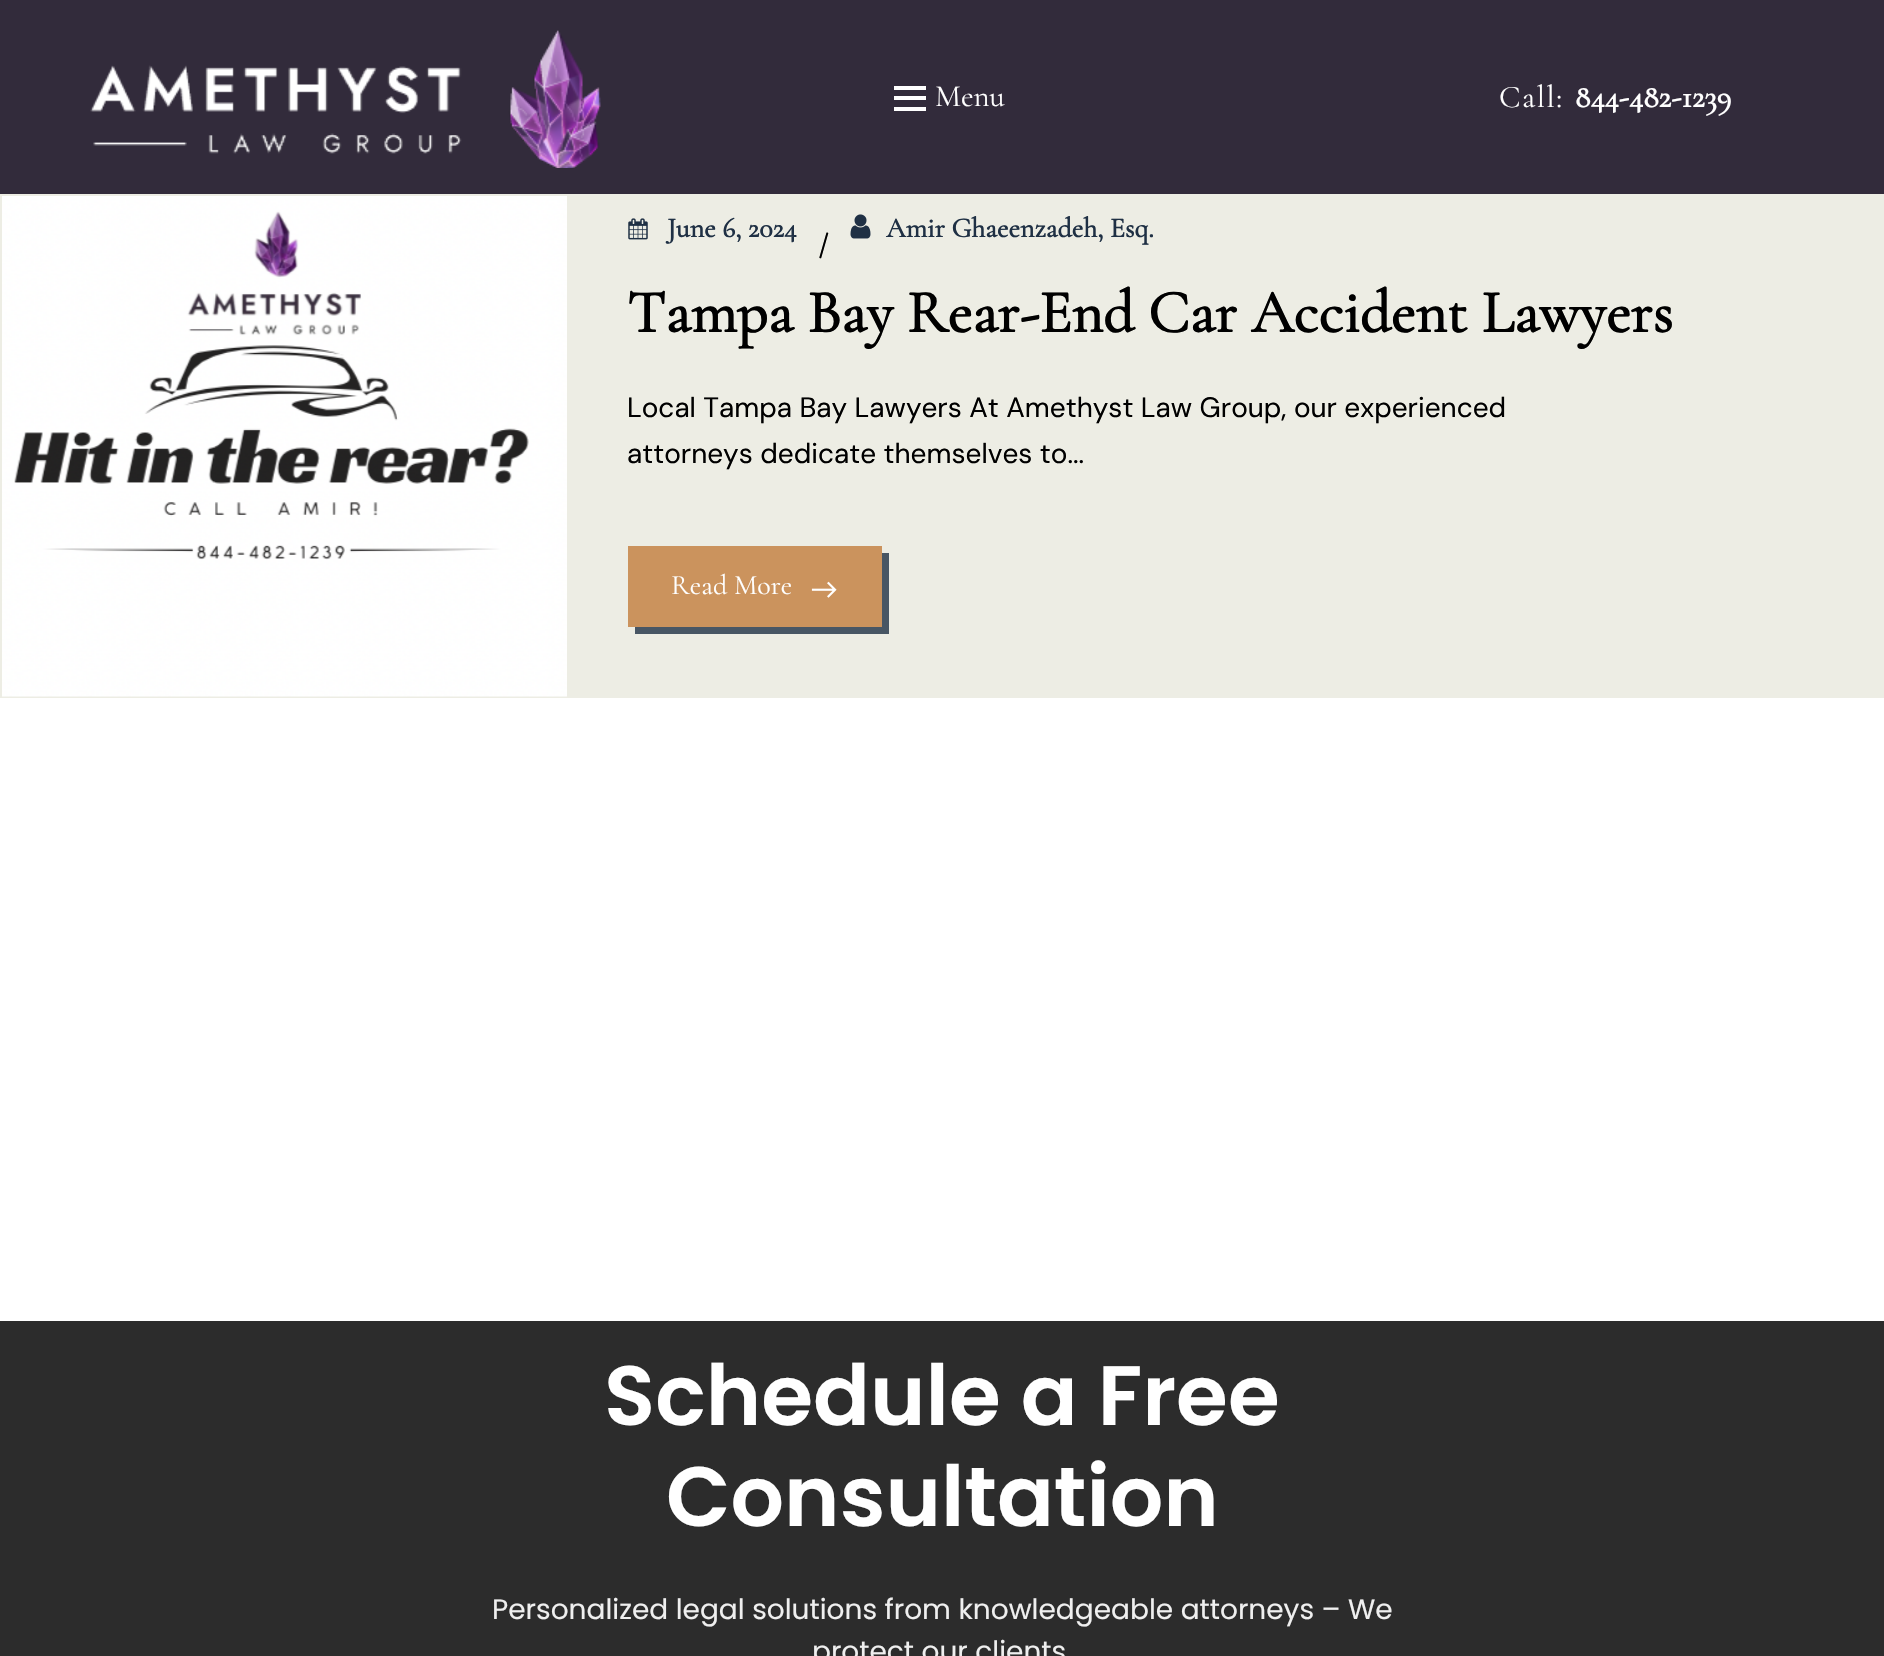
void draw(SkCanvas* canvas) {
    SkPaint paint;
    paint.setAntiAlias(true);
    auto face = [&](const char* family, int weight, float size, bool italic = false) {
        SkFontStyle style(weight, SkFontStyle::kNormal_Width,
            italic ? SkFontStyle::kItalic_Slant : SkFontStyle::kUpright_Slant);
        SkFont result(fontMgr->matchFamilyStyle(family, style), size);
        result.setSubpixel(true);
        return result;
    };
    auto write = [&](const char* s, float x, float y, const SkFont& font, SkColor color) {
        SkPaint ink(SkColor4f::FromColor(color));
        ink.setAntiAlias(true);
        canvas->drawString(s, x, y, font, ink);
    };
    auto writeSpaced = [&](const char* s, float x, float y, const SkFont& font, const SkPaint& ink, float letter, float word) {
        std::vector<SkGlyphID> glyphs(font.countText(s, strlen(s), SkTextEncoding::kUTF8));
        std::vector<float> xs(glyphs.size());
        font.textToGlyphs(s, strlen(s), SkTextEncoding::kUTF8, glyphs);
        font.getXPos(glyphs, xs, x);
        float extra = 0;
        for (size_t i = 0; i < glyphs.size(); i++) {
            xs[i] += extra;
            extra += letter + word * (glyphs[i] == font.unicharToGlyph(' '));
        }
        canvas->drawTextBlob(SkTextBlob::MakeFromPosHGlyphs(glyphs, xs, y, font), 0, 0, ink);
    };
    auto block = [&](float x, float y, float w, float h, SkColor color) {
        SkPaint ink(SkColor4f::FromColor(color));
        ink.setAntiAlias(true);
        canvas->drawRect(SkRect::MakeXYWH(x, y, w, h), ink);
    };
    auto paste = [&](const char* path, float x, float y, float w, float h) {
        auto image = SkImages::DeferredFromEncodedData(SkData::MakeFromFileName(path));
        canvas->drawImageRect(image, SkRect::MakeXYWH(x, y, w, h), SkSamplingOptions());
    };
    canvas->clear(SK_ColorWHITE);
    block(0, 0, 1884, 194, SkColorSetRGB(50, 43, 59));
    paste("pic1.png", 90, 30, 511, 138);
    block(894, 96, 32, 4, SK_ColorWHITE);
    block(894, 86, 32, 4, SK_ColorWHITE);
    block(894, 107, 32, 4, SK_ColorWHITE);
    auto kFont1 = face("Cormorant Garamond", 400, 31);
    write("Menu", 935, 106, kFont1, SK_ColorWHITE);
    auto kFont2 = face("Cormorant Garamond", 400, 31.5f);
    paint.setColor(SK_ColorWHITE);
    writeSpaced("Call:", 1499, 107, kFont2, paint, 1.5f, 0);
    auto kFont3 = face("Cormorant Garamond", 700, 31.5f);
    write("844-482-1239", 1575, 107, kFont3, SK_ColorWHITE);
    block(0, 194, 1884, 504, SkColorSetRGB(237, 237, 228));
    paste("pic2.png", 2, 196, 565, 501);
    paste("pic3.png", 628, 218, 20, 22);
    auto kFont4 = face("Cormorant Garamond", 700, 28);
    write("June 6, 2024", 667, 237, kFont4, SkColorSetRGB(31, 48, 68));
    canvas->save();
    canvas->rotate(180, 829, 237);
    write("/", 829, 237, kFont4, SK_ColorBLACK);
    canvas->restore();
    paste("pic4.png", 850, 214, 21, 25);
    write("Amir Ghaeenzadeh, Esq.", 886, 237, kFont4, SkColorSetRGB(31, 48, 68));
    auto kFont5 = face("Cormorant Garamond", 700, 60.5f);
    write("Tampa Bay Rear-End Car Accident Lawyers", 627, 332, kFont5, SK_ColorBLACK);
    auto kFont6 = face("DM Sans", 400, 28);
    write("Local Tampa Bay Lawyers At Amethyst Law Group, our experienced", 627, 417, kFont6, SK_ColorBLACK);
    write("attorneys dedicate themselves to...", 627, 463, kFont6, SK_ColorBLACK);
    paint.setColor(SkColorSetRGB(72, 86, 100));
    canvas->drawPath(SkPathBuilder().moveTo(635, 626).lineTo(635, 634).lineTo(889, 634).lineTo(889, 553).lineTo(882, 553).lineTo(882, 626).close().detach(), paint);
    paint.setStyle(SkPaint::kStroke_Style);
    paint.setStrokeWidth(2);
    paint.setColor(SkColorSetRGB(203, 147, 93));
    canvas->drawRect(SkRect::MakeXYWH(629, 547, 252, 79), paint);
    block(630, 548, 250, 77, SkColorSetRGB(203, 147, 93));
    auto kFont7 = face("Cormorant Garamond", 400, 28);
    write("Read More", 671, 594, kFont7, SK_ColorWHITE);
    paste("pic5.png", 811, 581, 26, 17);
    block(0, 1321, 1884, 335, SkColorSetRGB(44, 44, 44));
    auto kFont8 = face("Poppins", 600, 84);
    write("Schedule a Free", 604, 1425, kFont8, SK_ColorWHITE);
    write("Consultation", 666, 1526, kFont8, SK_ColorWHITE);
    auto kFont9 = face("Poppins", 400, 28);
    write("Personalized legal solutions from knowledgeable attorneys – We", 492, 1619, kFont9, SkColorSetRGB(239, 239, 239));
    write("protect our clients", 812, 1661, kFont9, SkColorSetRGB(239, 239, 239));
}
